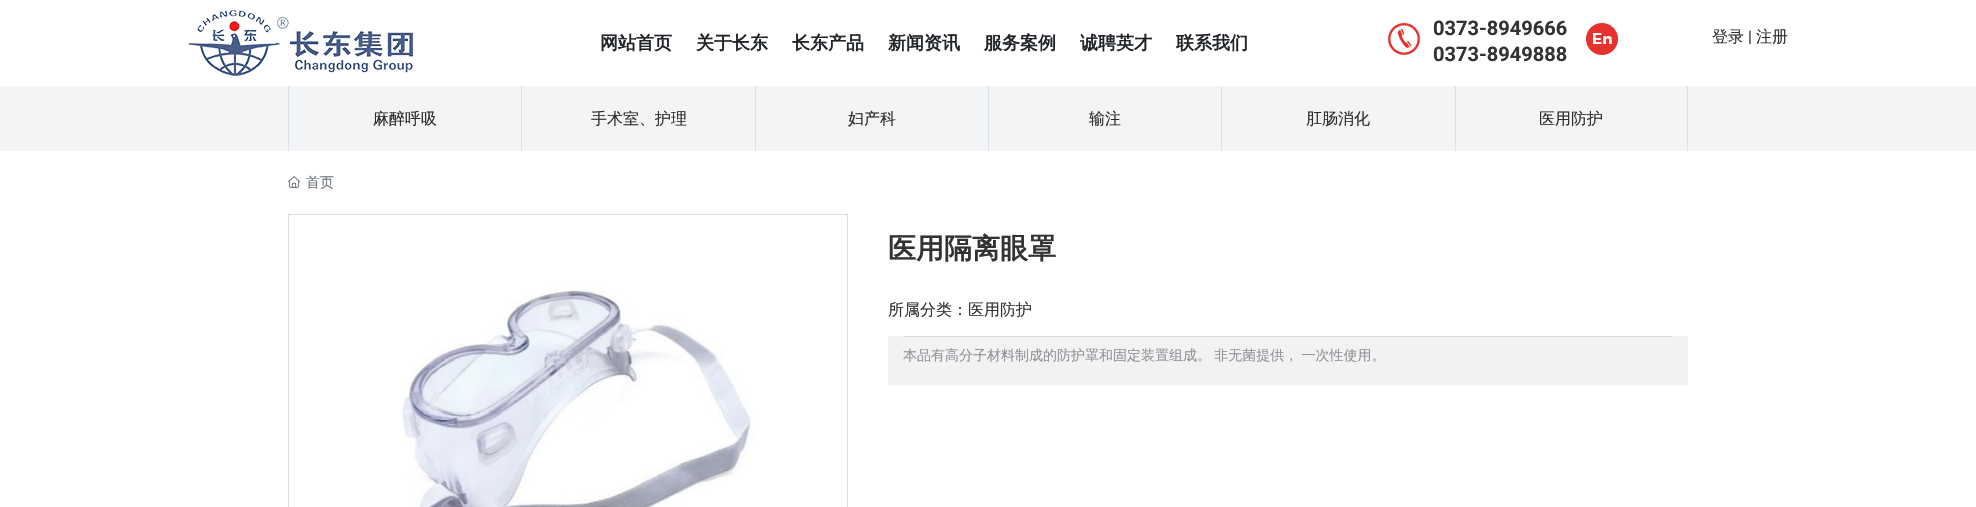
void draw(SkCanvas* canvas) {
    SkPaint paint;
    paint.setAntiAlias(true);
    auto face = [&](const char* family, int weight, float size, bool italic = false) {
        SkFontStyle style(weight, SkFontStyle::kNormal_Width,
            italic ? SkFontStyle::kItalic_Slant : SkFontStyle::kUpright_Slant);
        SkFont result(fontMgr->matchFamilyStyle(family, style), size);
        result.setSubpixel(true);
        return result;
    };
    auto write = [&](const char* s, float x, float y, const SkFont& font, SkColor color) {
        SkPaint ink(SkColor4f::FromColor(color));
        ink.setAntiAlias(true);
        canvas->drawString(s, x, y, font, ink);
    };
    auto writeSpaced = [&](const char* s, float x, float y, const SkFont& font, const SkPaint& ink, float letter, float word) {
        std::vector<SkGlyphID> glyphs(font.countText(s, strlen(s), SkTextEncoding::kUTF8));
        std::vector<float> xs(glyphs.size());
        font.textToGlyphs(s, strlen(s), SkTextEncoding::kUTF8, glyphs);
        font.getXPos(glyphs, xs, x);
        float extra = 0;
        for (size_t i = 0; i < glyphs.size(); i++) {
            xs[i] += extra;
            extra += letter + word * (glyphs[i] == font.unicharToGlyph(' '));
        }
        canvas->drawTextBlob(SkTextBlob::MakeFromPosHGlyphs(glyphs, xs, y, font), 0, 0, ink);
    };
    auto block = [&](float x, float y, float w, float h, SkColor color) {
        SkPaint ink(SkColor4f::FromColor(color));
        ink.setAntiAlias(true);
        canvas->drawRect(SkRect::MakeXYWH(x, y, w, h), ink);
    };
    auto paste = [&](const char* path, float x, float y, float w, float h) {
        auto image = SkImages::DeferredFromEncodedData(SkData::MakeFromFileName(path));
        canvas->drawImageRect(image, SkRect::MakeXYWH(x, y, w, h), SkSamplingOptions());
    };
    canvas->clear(SK_ColorWHITE);
    paste("pic1.png", 188, 10, 225, 66);
    auto kFont1 = face("WenQuanYi Zen Hei", 700, 18);
    write("网站首页", 600, 49, kFont1, SkColorSetRGB(33, 37, 41));
    write("关于长东", 696, 49, kFont1, SkColorSetRGB(33, 37, 41));
    write("长东产品", 792, 49, kFont1, SkColorSetRGB(33, 37, 41));
    write("新闻资讯", 888, 49, kFont1, SkColorSetRGB(33, 37, 41));
    write("服务案例", 984, 49, kFont1, SkColorSetRGB(33, 37, 41));
    write("诚聘英才", 1080, 49, kFont1, SkColorSetRGB(33, 37, 41));
    write("联系我们", 1176, 49, kFont1, SkColorSetRGB(33, 37, 41));
    paste("pic2.png", 1388, 23, 32, 32);
    auto kFont2 = face("Roboto", 700, 20);
    write("0373-8949666", 1433, 35, kFont2, SkColorSetRGB(51, 51, 51));
    write("0373-8949888", 1433, 61, kFont2, SkColorSetRGB(51, 51, 51));
    paste("pic3.png", 1586, 23, 32, 32);
    auto kFont3 = face("WenQuanYi Zen Hei", 500, 16);
    write("登录", 1712, 42, kFont3, SkColorSetRGB(51, 51, 51));
    auto kFont4 = face("Roboto", 400, 16);
    write("|", 1748, 42, kFont4, SkColorSetRGB(51, 51, 51));
    write("注册", 1756, 42, kFont3, SkColorSetRGB(51, 51, 51));
    block(0, 86, 1976, 65, SkColorSetRGB(242, 244, 245));
    block(288, 86, 1, 65, SkColorSetRGB(220, 223, 230));
    write("麻醉呼吸", 373, 124, kFont3, SkColorSetRGB(44, 44, 44));
    block(521, 86, 1, 65, SkColorSetRGB(220, 223, 230));
    write("手术室、护理", 591, 124, kFont3, SkColorSetRGB(44, 44, 44));
    block(755, 86, 1, 65, SkColorSetRGB(220, 223, 230));
    write("妇产科", 848, 124, kFont3, SkColorSetRGB(44, 44, 44));
    block(988, 86, 1, 65, SkColorSetRGB(220, 223, 230));
    write("输注", 1089, 124, kFont3, SkColorSetRGB(44, 44, 44));
    block(1221, 86, 1, 65, SkColorSetRGB(220, 223, 230));
    write("肛肠消化", 1306, 124, kFont3, SkColorSetRGB(44, 44, 44));
    block(1687, 86, 1, 65, SkColorSetRGB(220, 223, 230));
    block(1455, 86, 1, 65, SkColorSetRGB(220, 223, 230));
    write("医用防护", 1539, 124, kFont3, SkColorSetRGB(44, 44, 44));
    paste("pic4.png", 288, 176, 12, 12);
    auto kFont5 = face("WenQuanYi Zen Hei", 500, 14);
    write("首页", 306, 187, kFont5, SkColorSetRGB(108, 117, 125));
    paint.setStyle(SkPaint::kStroke_Style);
    paint.setStrokeWidth(1);
    paint.setColor(SkColorSetRGB(221, 221, 221));
    canvas->drawRect(SkRect::MakeXYWH(288.5f, 214.5f, 559, 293), paint);
    paste("pic5.png", 402, 283, 353, 224);
    auto kFont6 = face("WenQuanYi Zen Hei", 700, 28);
    write("医用隔离眼罩", 888, 258, kFont6, SkColorSetRGB(51, 51, 51));
    write("所属分类：医用防护", 888, 315, kFont3, SkColorSetRGB(51, 51, 51));
    block(888, 336, 800, 49, SkColorSetRGB(242, 242, 242));
    block(903, 336, 770, 1, SkColorSetRGB(218, 218, 218));
    paint.setStyle(SkPaint::kFill_Style);
    paint.setColor(SkColorSetRGB(144, 147, 153));
    writeSpaced("本品有高分子材料制成的防护罩和固定装置组成。 非无菌提供， 一次性使用。", 903, 360, kFont5, paint, 0, -1);
}
